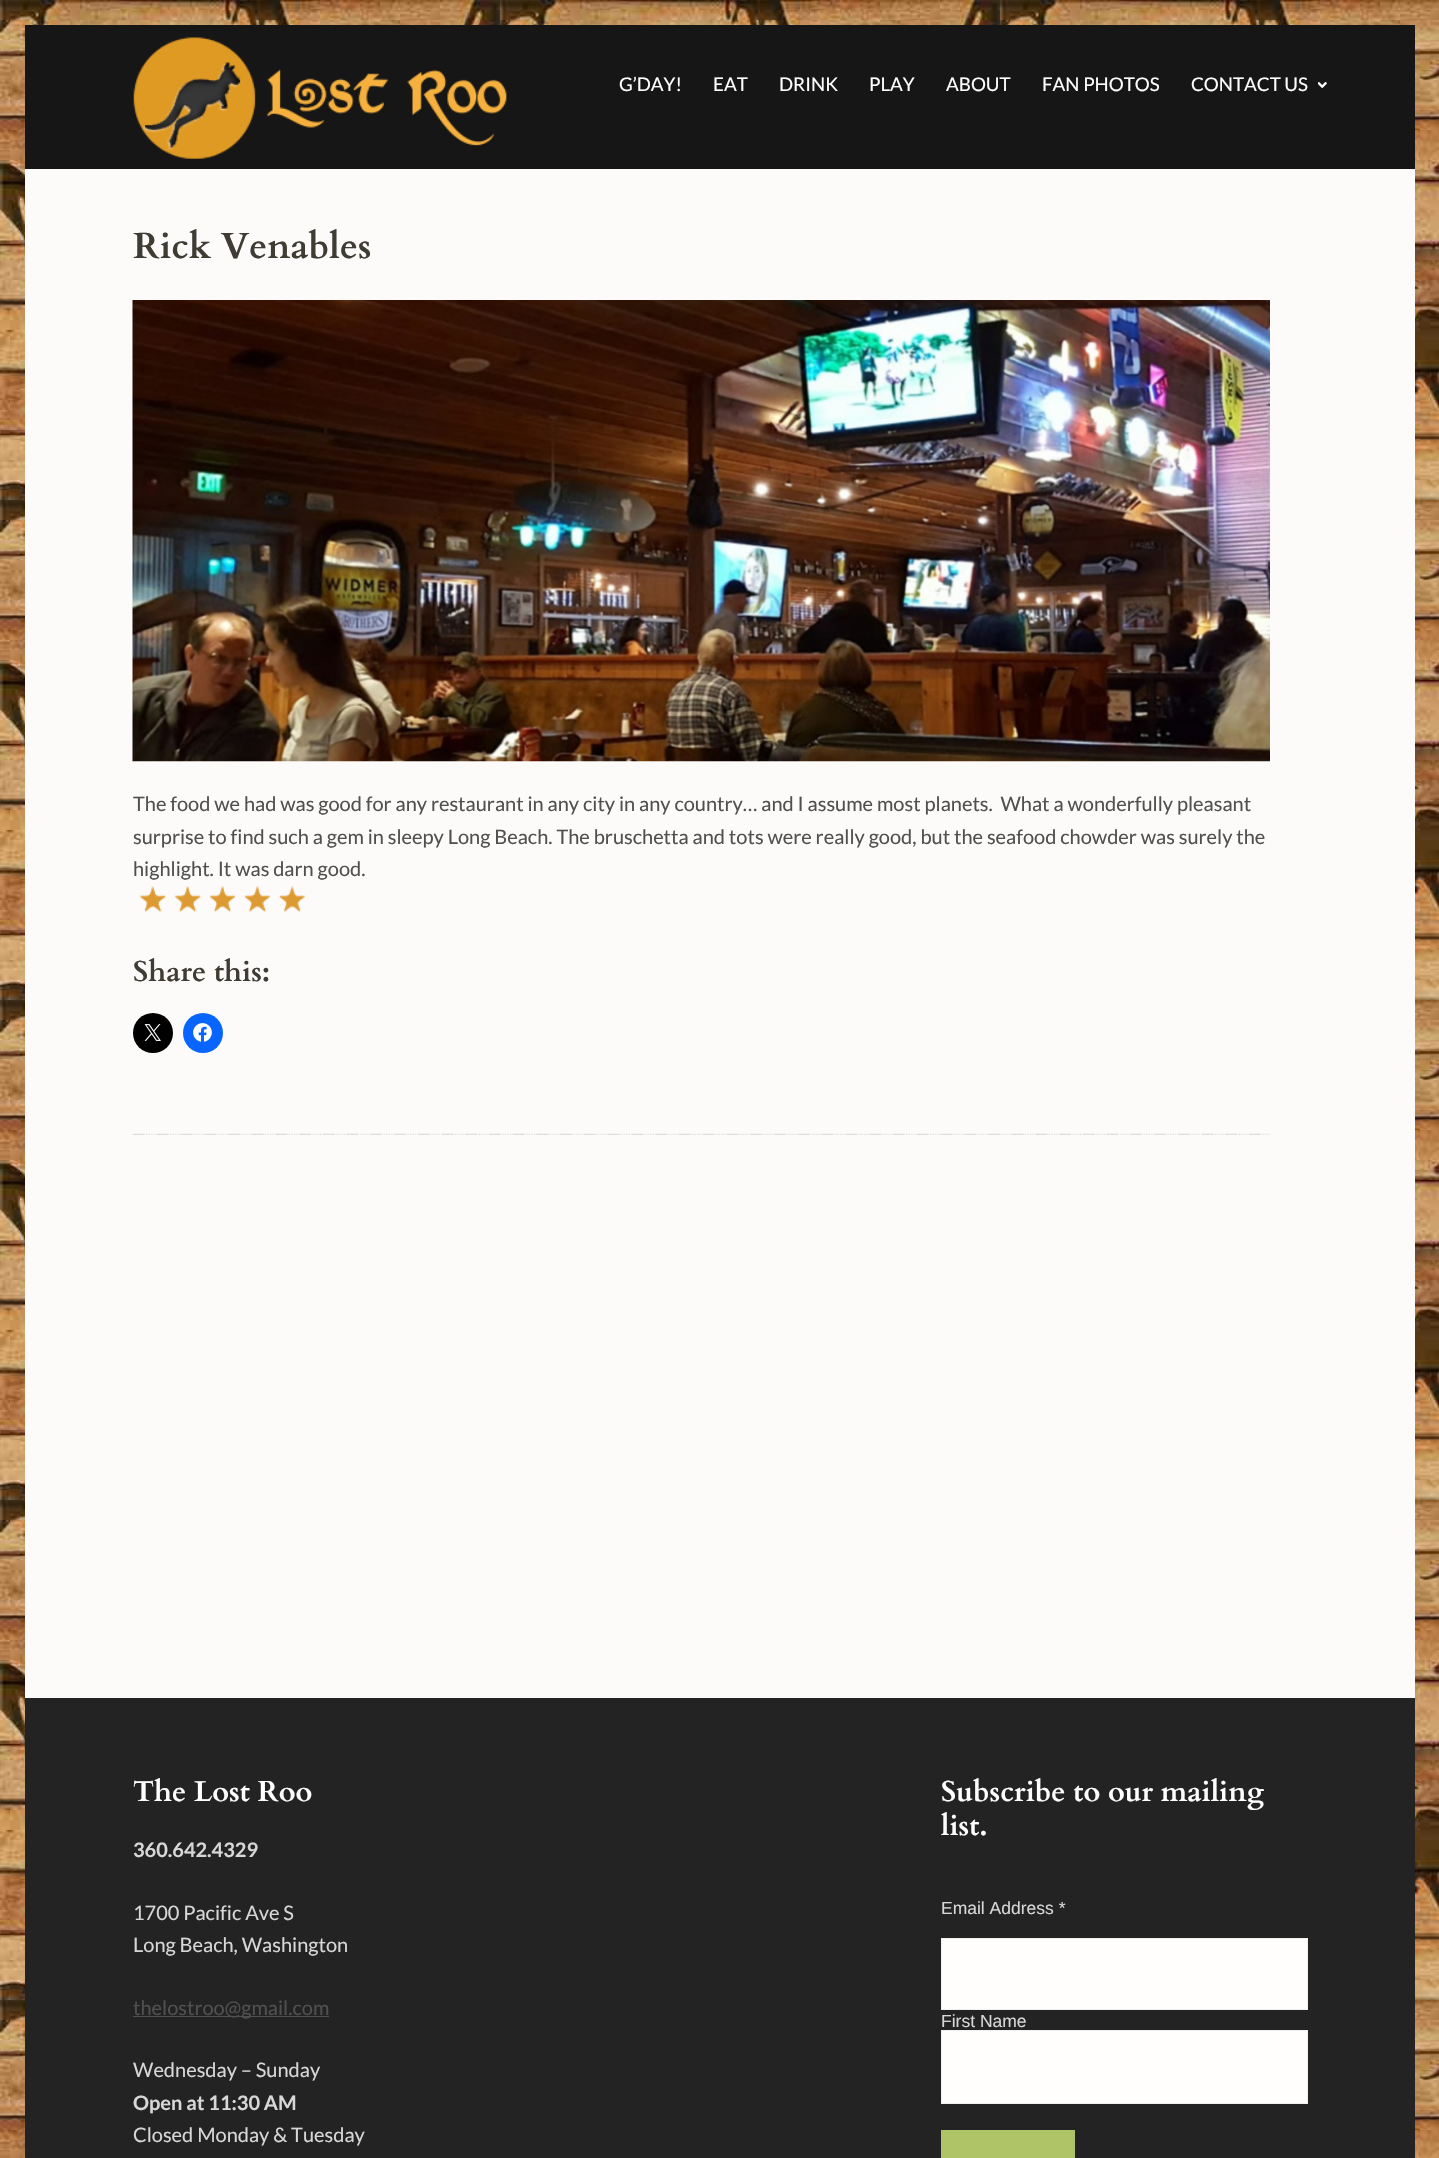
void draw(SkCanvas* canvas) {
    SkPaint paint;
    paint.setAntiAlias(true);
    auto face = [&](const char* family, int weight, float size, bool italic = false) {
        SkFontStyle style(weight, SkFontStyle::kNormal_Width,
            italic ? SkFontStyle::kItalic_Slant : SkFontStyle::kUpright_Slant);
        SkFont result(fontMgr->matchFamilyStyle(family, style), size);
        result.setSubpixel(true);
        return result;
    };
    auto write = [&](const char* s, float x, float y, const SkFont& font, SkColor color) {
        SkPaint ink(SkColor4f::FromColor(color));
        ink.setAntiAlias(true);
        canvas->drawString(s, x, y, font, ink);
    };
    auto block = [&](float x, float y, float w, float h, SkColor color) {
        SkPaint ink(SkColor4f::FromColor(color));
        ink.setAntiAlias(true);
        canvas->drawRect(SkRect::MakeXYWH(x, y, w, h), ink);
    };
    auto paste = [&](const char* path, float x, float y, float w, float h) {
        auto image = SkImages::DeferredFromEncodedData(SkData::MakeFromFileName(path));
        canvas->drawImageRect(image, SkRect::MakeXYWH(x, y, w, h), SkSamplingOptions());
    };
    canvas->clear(SK_ColorWHITE);
    paste("pic1.png", 0, 0, 1439, 2158);
    block(25, 169, 1390, 1529, SkColorSetRGB(252, 251, 250));
    block(25, 25, 1390, 144, SkColorSetRGB(23, 22, 22));
    paste("pic2.png", 133, 37, 374, 122);
    auto kFont1 = face("Lato", 400, 18.75f);
    write("G’DAY!", 619, 91, kFont1, SK_ColorWHITE);
    write("EAT", 713, 91, kFont1, SK_ColorWHITE);
    write("DRINK", 779, 91, kFont1, SK_ColorWHITE);
    write("PLAY", 869, 91, kFont1, SK_ColorWHITE);
    write("ABOUT", 946, 91, kFont1, SK_ColorWHITE);
    write("FAN PHOTOS", 1042, 91, kFont1, SK_ColorWHITE);
    write("CONTACT US", 1191, 91, kFont1, SK_ColorWHITE);
    paste("pic3.png", 1318, 82, 9, 6);
    paste("pic4.png", 132, 1133, 1137, 2);
    auto kFont2 = face("Cardo", 700, 36.25f);
    write("Rick Venables", 133, 258, kFont2, SkColorSetRGB(63, 61, 51));
    paste("pic5.png", 132, 300, 1138, 462);
    auto kFont3 = face("Lato", 400, 20);
    write("The food we had was good for any restaurant in any city in any country… and I assume most planets.  What a wonderfully pleasant", 133, 811, kFont3, SkColorSetRGB(81, 80, 80));
    write("surprise to find such a gem in sleepy Long Beach. The bruschetta and tots were really good, but the seafood chowder was surely the", 133, 844, kFont3, SkColorSetRGB(81, 80, 80));
    write("highlight. It was darn good.", 133, 876, kFont3, SkColorSetRGB(81, 80, 80));
    paste("pic6.png", 139, 886, 167, 26);
    auto kFont4 = face("Cardo", 700, 28.75f);
    write("Share this:", 133, 981, kFont4, SkColorSetRGB(63, 61, 51));
    paint.setColor(SK_ColorBLACK);
    canvas->drawCircle(153, 1033, 20, paint);
    paste("pic7.png", 144, 1024, 17, 17);
    paint.setColor(SkColorSetRGB(8, 102, 255));
    canvas->drawCircle(203, 1033, 20, paint);
    paste("pic8.png", 193, 1023, 19, 19);
    block(25, 1698, 1390, 460, SkColorSetRGB(36, 35, 35));
    write("The Lost Roo", 133, 1801, kFont4, SK_ColorWHITE);
    auto kFont5 = face("Lato", 700, 20);
    write("360.642.4329", 133, 1857, kFont5, SkColorSetRGB(215, 215, 215));
    write("1700 Pacific Ave S", 133, 1920, kFont3, SkColorSetRGB(215, 215, 215));
    write("Long Beach, Washington", 133, 1952, kFont3, SkColorSetRGB(215, 215, 215));
    block(133, 2016, 196, 1, SkColorSetRGB(81, 80, 80));
    write("thelostroo@gmail.com", 133, 2015, kFont3, SkColorSetRGB(81, 80, 80));
    write("Wednesday – Sunday", 133, 2077, kFont3, SkColorSetRGB(215, 215, 215));
    write("Open at 11:30 AM", 133, 2110, kFont5, SkColorSetRGB(215, 215, 215));
    write("Closed Monday & Tuesday", 133, 2142, kFont3, SkColorSetRGB(215, 215, 215));
    write("Subscribe to our mailing", 941, 1801, kFont4, SK_ColorWHITE);
    write("list.", 941, 1835, kFont4, SK_ColorWHITE);
    auto kFont6 = face("Liberation Sans", 400, 17.5f);
    write("Email Address *", 941, 1914, kFont6, SkColorSetRGB(215, 215, 215));
    paint.setColor(SkColorSetRGB(255, 254, 253));
    canvas->drawRect(SkRect::MakeXYWH(941.5f, 1938.5f, 366, 71), paint);
    paint.setStyle(SkPaint::kStroke_Style);
    paint.setStrokeWidth(1);
    paint.setColor(SkColorSetRGB(242, 241, 240));
    canvas->drawRect(SkRect::MakeXYWH(941.5f, 1938.5f, 366, 71), paint);
    write("First Name", 941, 2027, kFont6, SkColorSetRGB(215, 215, 215));
    paint.setStyle(SkPaint::kFill_Style);
    paint.setColor(SkColorSetRGB(255, 254, 253));
    canvas->drawRect(SkRect::MakeXYWH(941.5f, 2030.5f, 366, 73), paint);
    paint.setStyle(SkPaint::kStroke_Style);
    paint.setColor(SkColorSetRGB(242, 241, 240));
    canvas->drawRect(SkRect::MakeXYWH(941.5f, 2030.5f, 366, 73), paint);
    block(941, 2130, 134, 28, SkColorSetRGB(175, 196, 102));
}
